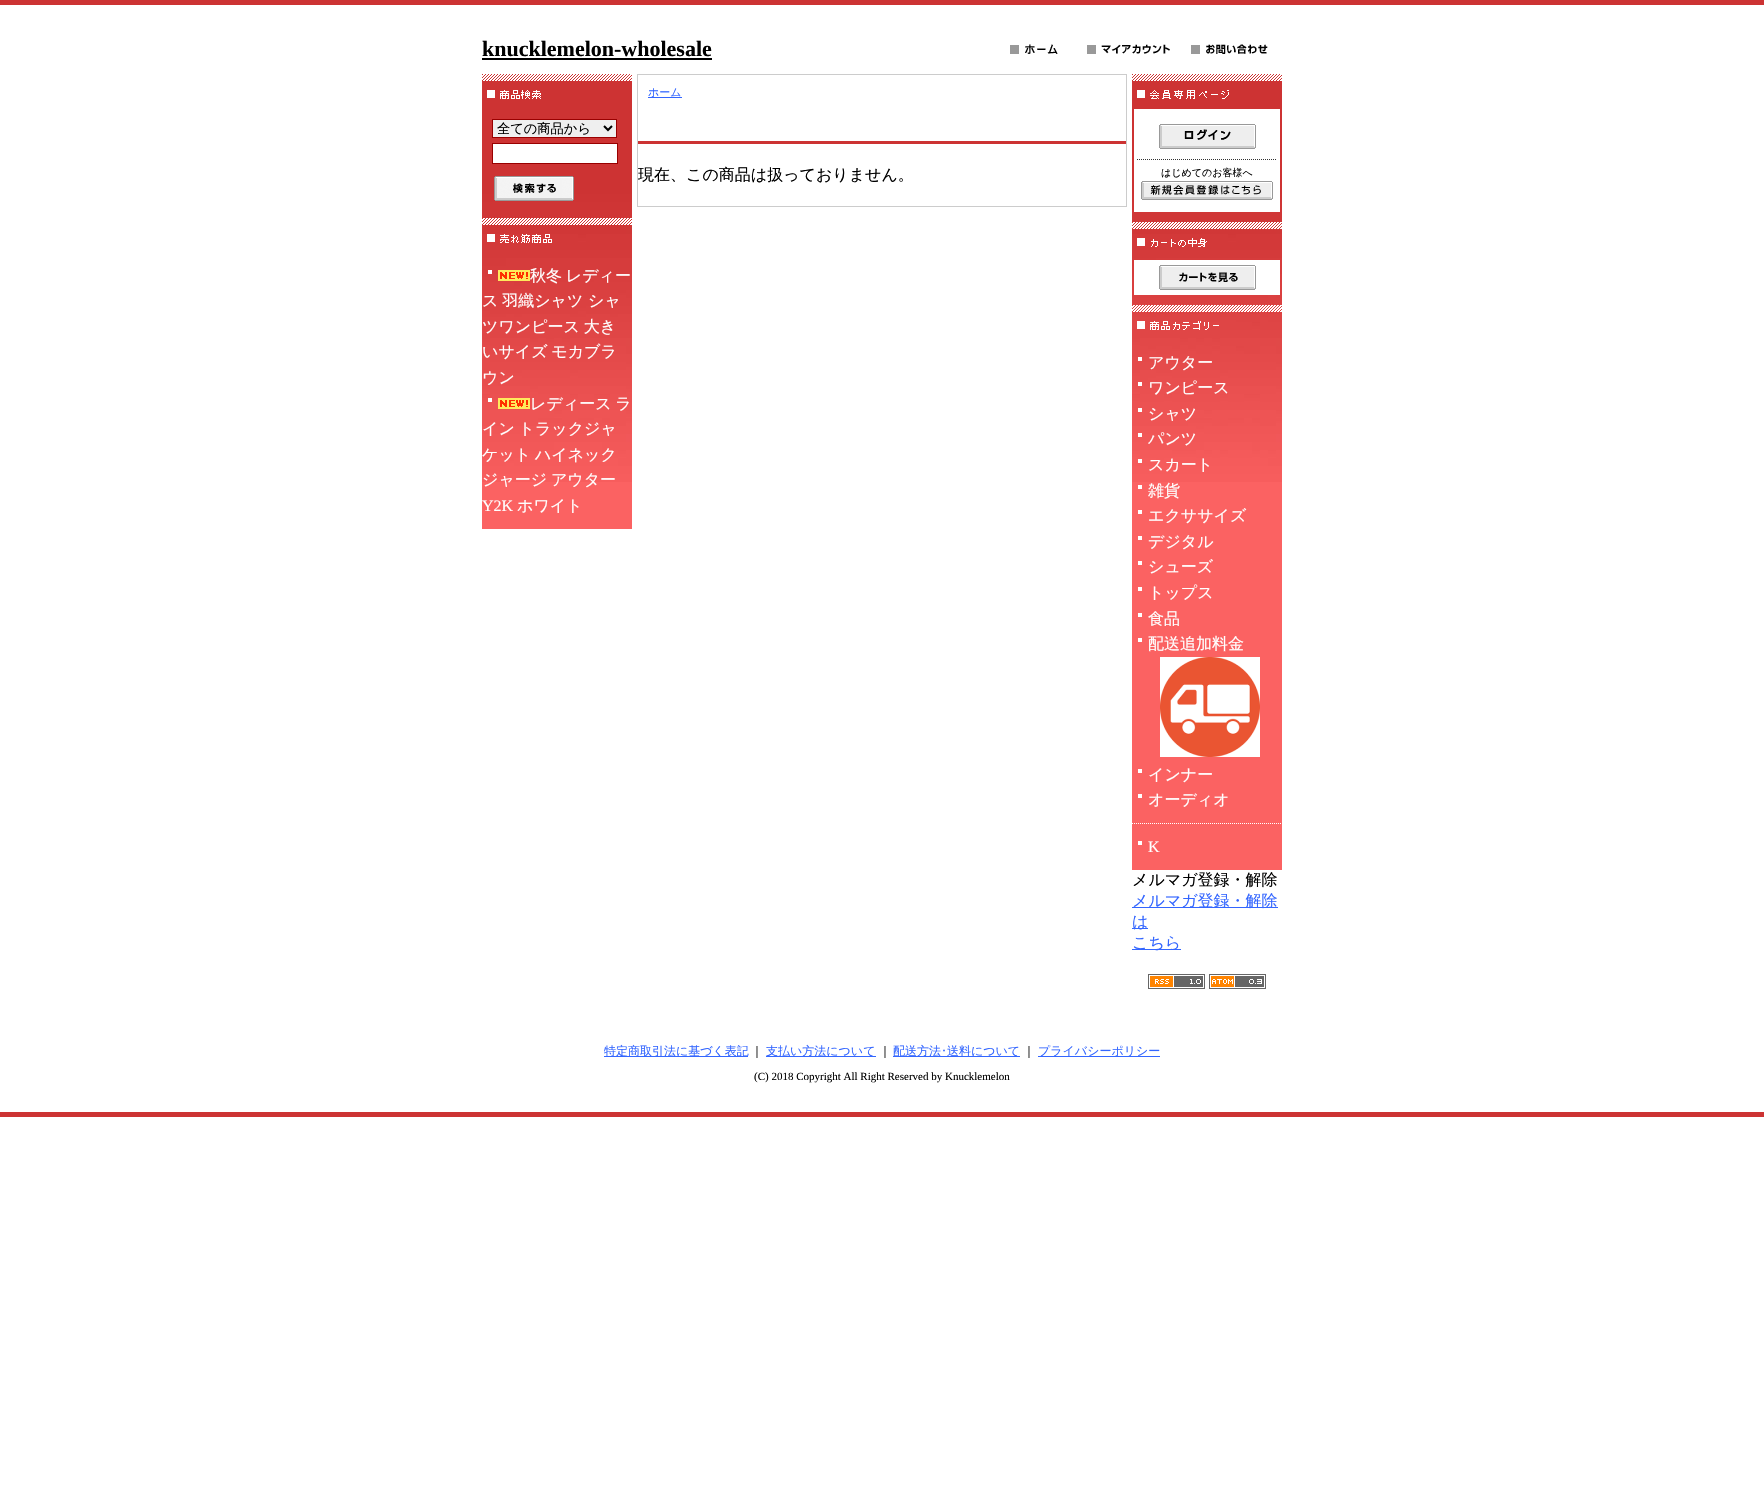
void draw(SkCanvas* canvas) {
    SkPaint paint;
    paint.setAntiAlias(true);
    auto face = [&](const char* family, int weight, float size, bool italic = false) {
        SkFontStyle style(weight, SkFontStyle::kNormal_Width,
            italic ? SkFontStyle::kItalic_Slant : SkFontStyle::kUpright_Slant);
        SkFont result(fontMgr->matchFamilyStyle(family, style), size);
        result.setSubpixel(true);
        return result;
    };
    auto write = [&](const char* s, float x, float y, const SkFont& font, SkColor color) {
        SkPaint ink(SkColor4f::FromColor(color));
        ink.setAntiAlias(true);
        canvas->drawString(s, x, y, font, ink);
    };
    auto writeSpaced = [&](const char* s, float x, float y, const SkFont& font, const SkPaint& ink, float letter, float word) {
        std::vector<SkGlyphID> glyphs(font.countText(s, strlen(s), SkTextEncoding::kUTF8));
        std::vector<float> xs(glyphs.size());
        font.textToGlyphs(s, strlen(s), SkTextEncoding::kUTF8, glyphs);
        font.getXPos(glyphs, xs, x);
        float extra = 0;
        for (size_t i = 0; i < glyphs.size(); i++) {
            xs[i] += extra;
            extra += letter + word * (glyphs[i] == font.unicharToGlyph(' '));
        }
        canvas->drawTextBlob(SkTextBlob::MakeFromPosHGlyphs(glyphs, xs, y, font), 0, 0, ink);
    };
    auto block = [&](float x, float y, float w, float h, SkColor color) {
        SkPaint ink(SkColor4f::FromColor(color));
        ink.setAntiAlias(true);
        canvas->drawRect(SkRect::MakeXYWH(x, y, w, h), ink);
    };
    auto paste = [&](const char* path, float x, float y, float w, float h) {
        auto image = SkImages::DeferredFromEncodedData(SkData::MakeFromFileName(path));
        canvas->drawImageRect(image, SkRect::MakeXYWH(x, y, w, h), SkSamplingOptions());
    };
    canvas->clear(SK_ColorWHITE);
    block(0, 0, 1764, 5, SkColorSetRGB(204, 51, 51));
    block(0, 1112, 1764, 5, SkColorSetRGB(204, 51, 51));
    auto kFont1 = face("Liberation Serif", 700, 22);
    write("knucklemelon-wholesale", 482, 56, kFont1, SK_ColorBLACK);
    block(482, 58, 230, 2, SK_ColorBLACK);
    block(1010, 45, 9, 9, SkColorSetRGB(153, 153, 153));
    paste("pic1.png", 1004, 37, 77, 25);
    block(1087, 45, 9, 9, SkColorSetRGB(153, 153, 153));
    paste("pic2.png", 1081, 37, 104, 25);
    block(1191, 45, 9, 9, SkColorSetRGB(153, 153, 153));
    paste("pic3.png", 1185, 37, 97, 25);
    block(482, 482, 150, 47, SkColorSetRGB(251, 98, 98));
    paste("pic4.png", 482, 74, 150, 408);
    paste("pic5.png", 482, 74, 150, 25);
    paint.setColor(SkColorSetRGB(239, 239, 239));
    canvas->drawRect(SkRect::MakeXYWH(492.5f, 119.5f, 124, 18), paint);
    paint.setStyle(SkPaint::kStroke_Style);
    paint.setStrokeWidth(1);
    paint.setColor(SkColorSetRGB(153, 0, 0));
    canvas->drawRect(SkRect::MakeXYWH(492.5f, 119.5f, 124, 18), paint);
    paint.setStrokeWidth(2);
    paint.setColor(SK_ColorBLACK);
    canvas->drawPath(SkPathBuilder().moveTo(604, 126).lineTo(608, 130).lineTo(612, 126).detach(), paint);
    auto kFont2 = face("WenQuanYi Zen Hei", 500, 13.25f);
    write("全ての商品から", 497, 133, kFont2, SK_ColorBLACK);
    paint.setStyle(SkPaint::kFill_Style);
    paint.setColor(SK_ColorWHITE);
    canvas->drawRect(SkRect::MakeXYWH(492.5f, 143.5f, 125, 20), paint);
    paint.setStyle(SkPaint::kStroke_Style);
    paint.setStrokeWidth(1);
    paint.setColor(SkColorSetRGB(153, 0, 0));
    canvas->drawRect(SkRect::MakeXYWH(492.5f, 143.5f, 125, 20), paint);
    paste("pic6.png", 494, 176, 80, 25);
    paste("pic7.png", 482, 218, 150, 25);
    block(488, 270, 4, 4, SK_ColorWHITE);
    paste("pic8.png", 498, 270, 32, 11);
    auto kFont3 = face("WenQuanYi Zen Hei", 500, 16);
    paint.setStyle(SkPaint::kFill_Style);
    paint.setColor(SK_ColorWHITE);
    writeSpaced("秋冬 レディー", 530, 281, kFont3, paint, 0, -1);
    writeSpaced("ス 羽織シャツ", 482, 306, kFont3, paint, 0, -1);
    write("シャ", 588, 306, kFont3, SK_ColorWHITE);
    writeSpaced("ツワンピース 大き", 482, 332, kFont3, paint, 0, -1);
    writeSpaced("いサイズ モカブラ", 482, 357, kFont3, paint, 0, -1);
    write("ウン", 482, 383, kFont3, SK_ColorWHITE);
    block(488, 398, 4, 4, SK_ColorWHITE);
    paste("pic8.png", 498, 398, 32, 11);
    writeSpaced("レディース ラ", 530, 409, kFont3, paint, 0, -1);
    writeSpaced("イン トラックジャ", 482, 434, kFont3, paint, 0, -1);
    writeSpaced("ケット ハイネック", 482, 460, kFont3, paint, 0, -1);
    writeSpaced("ジャージ アウター", 482, 485, kFont3, paint, 0, -1);
    auto kFont4 = face("Liberation Serif", 400, 16);
    write("Y2K", 482, 511, kFont4, SK_ColorWHITE);
    write("ホワイト", 517, 511, kFont3, SK_ColorWHITE);
    paint.setStyle(SkPaint::kStroke_Style);
    paint.setColor(SkColorSetRGB(204, 204, 204));
    canvas->drawRect(SkRect::MakeXYWH(637.5f, 74.5f, 489, 132), paint);
    block(648, 97, 34, 1, SkColorSetRGB(51, 102, 255));
    auto kFont5 = face("WenQuanYi Zen Hei", 500, 11);
    write("ホーム", 648, 96, kFont5, SkColorSetRGB(51, 102, 255));
    block(638, 141, 488, 3, SkColorSetRGB(204, 51, 51));
    write("現在、この商品は扱っておりません。", 638, 180, kFont3, SK_ColorBLACK);
    block(1132, 482, 150, 388, SkColorSetRGB(251, 98, 98));
    paste("pic4.png", 1132, 74, 150, 408);
    paste("pic9.png", 1132, 74, 150, 25);
    block(1134, 109, 146, 103, SK_ColorWHITE);
    paste("pic10.png", 1159, 124, 97, 25);
    paint.setColor(SkColorSetRGB(51, 51, 51));
    paint.setPathEffect(SkDashPathEffect::Make({{1, 1}}, 0));
    canvas->drawPath(SkPathBuilder().moveTo(1137, 159.5f).lineTo(1277, 159.5f).detach(), paint);
    paint.setPathEffect(nullptr);
    auto kFont6 = face("WenQuanYi Zen Hei", 500, 10);
    write("はじめてのお客様へ", 1161, 176, kFont6, SK_ColorBLACK);
    paste("pic11.png", 1141, 181, 132, 19);
    paste("pic12.png", 1132, 222, 150, 25);
    block(1134, 260, 146, 35, SK_ColorWHITE);
    paste("pic13.png", 1159, 265, 97, 25);
    paste("pic14.png", 1132, 305, 150, 25);
    block(1138, 357, 4, 4, SK_ColorWHITE);
    write("アウター", 1148, 368, kFont3, SK_ColorWHITE);
    block(1138, 382, 4, 4, SK_ColorWHITE);
    write("ワンピース", 1148, 393, kFont3, SK_ColorWHITE);
    block(1138, 408, 4, 4, SK_ColorWHITE);
    write("シャツ", 1148, 419, kFont3, SK_ColorWHITE);
    block(1138, 433, 4, 4, SK_ColorWHITE);
    write("パンツ", 1148, 444, kFont3, SK_ColorWHITE);
    block(1138, 459, 4, 4, SK_ColorWHITE);
    write("スカート", 1148, 470, kFont3, SK_ColorWHITE);
    block(1138, 485, 4, 4, SK_ColorWHITE);
    write("雑貨", 1148, 496, kFont3, SK_ColorWHITE);
    block(1138, 510, 4, 4, SK_ColorWHITE);
    write("エクササイズ", 1148, 521, kFont3, SK_ColorWHITE);
    block(1138, 536, 4, 4, SK_ColorWHITE);
    write("デジタル", 1148, 547, kFont3, SK_ColorWHITE);
    block(1138, 561, 4, 4, SK_ColorWHITE);
    write("シューズ", 1148, 572, kFont3, SK_ColorWHITE);
    block(1138, 587, 4, 4, SK_ColorWHITE);
    write("トップス", 1148, 598, kFont3, SK_ColorWHITE);
    block(1138, 613, 4, 4, SK_ColorWHITE);
    write("食品", 1148, 624, kFont3, SK_ColorWHITE);
    block(1138, 638, 4, 4, SK_ColorWHITE);
    write("配送追加料金", 1148, 649, kFont3, SK_ColorWHITE);
    paste("pic15.png", 1160, 657, 100, 100);
    block(1138, 769, 4, 4, SK_ColorWHITE);
    write("インナー", 1148, 780, kFont3, SK_ColorWHITE);
    block(1138, 794, 4, 4, SK_ColorWHITE);
    write("オーディオ", 1148, 805, kFont3, SK_ColorWHITE);
    paint.setColor(SK_ColorWHITE);
    paint.setPathEffect(SkDashPathEffect::Make({{1, 1}}, 0));
    canvas->drawPath(SkPathBuilder().moveTo(1132, 823.5f).lineTo(1282, 823.5f).detach(), paint);
    paint.setPathEffect(nullptr);
    block(1138, 841, 4, 4, SK_ColorWHITE);
    write("K", 1148, 852, kFont4, SK_ColorWHITE);
    write("メルマガ登録・解除", 1132, 885, kFont3, SK_ColorBLACK);
    block(1132, 907, 146, 1, SkColorSetRGB(51, 102, 255));
    write("メルマガ登録・解除", 1132, 906, kFont3, SkColorSetRGB(51, 102, 255));
    block(1132, 928, 16, 1, SkColorSetRGB(51, 102, 255));
    write("は", 1132, 927, kFont3, SkColorSetRGB(51, 102, 255));
    block(1132, 949, 49, 1, SkColorSetRGB(51, 102, 255));
    write("こちら", 1132, 948, kFont3, SkColorSetRGB(51, 102, 255));
    paste("pic16.png", 1148, 974, 57, 15);
    paste("pic17.png", 1209, 974, 57, 15);
    block(604, 1056, 144, 1, SkColorSetRGB(51, 102, 255));
    auto kFont7 = face("WenQuanYi Zen Hei", 500, 12);
    write("特定商取引法に基づく表記", 604, 1055, kFont7, SkColorSetRGB(51, 102, 255));
    write("｜", 751, 1055, kFont7, SK_ColorBLACK);
    block(766, 1056, 110, 1, SkColorSetRGB(51, 102, 255));
    write("支払い方法について", 766, 1055, kFont7, SkColorSetRGB(51, 102, 255));
    write("｜", 879, 1055, kFont7, SK_ColorBLACK);
    block(893, 1056, 127, 1, SkColorSetRGB(51, 102, 255));
    write("配送方法", 893, 1055, kFont7, SkColorSetRGB(51, 102, 255));
    auto kFont8 = face("IPAPGothic", 400, 12);
    write("･", 941, 1055, kFont8, SkColorSetRGB(51, 102, 255));
    write("送料について", 947, 1055, kFont7, SkColorSetRGB(51, 102, 255));
    write("｜", 1023, 1055, kFont7, SK_ColorBLACK);
    block(1038, 1056, 122, 1, SkColorSetRGB(51, 102, 255));
    write("プライバシーポリシー", 1038, 1055, kFont7, SkColorSetRGB(51, 102, 255));
    auto kFont9 = face("Liberation Serif", 400, 11);
    write("(C) 2018 Copyright All Right Reserved by Knucklemelon", 754, 1080, kFont9, SK_ColorBLACK);
}
